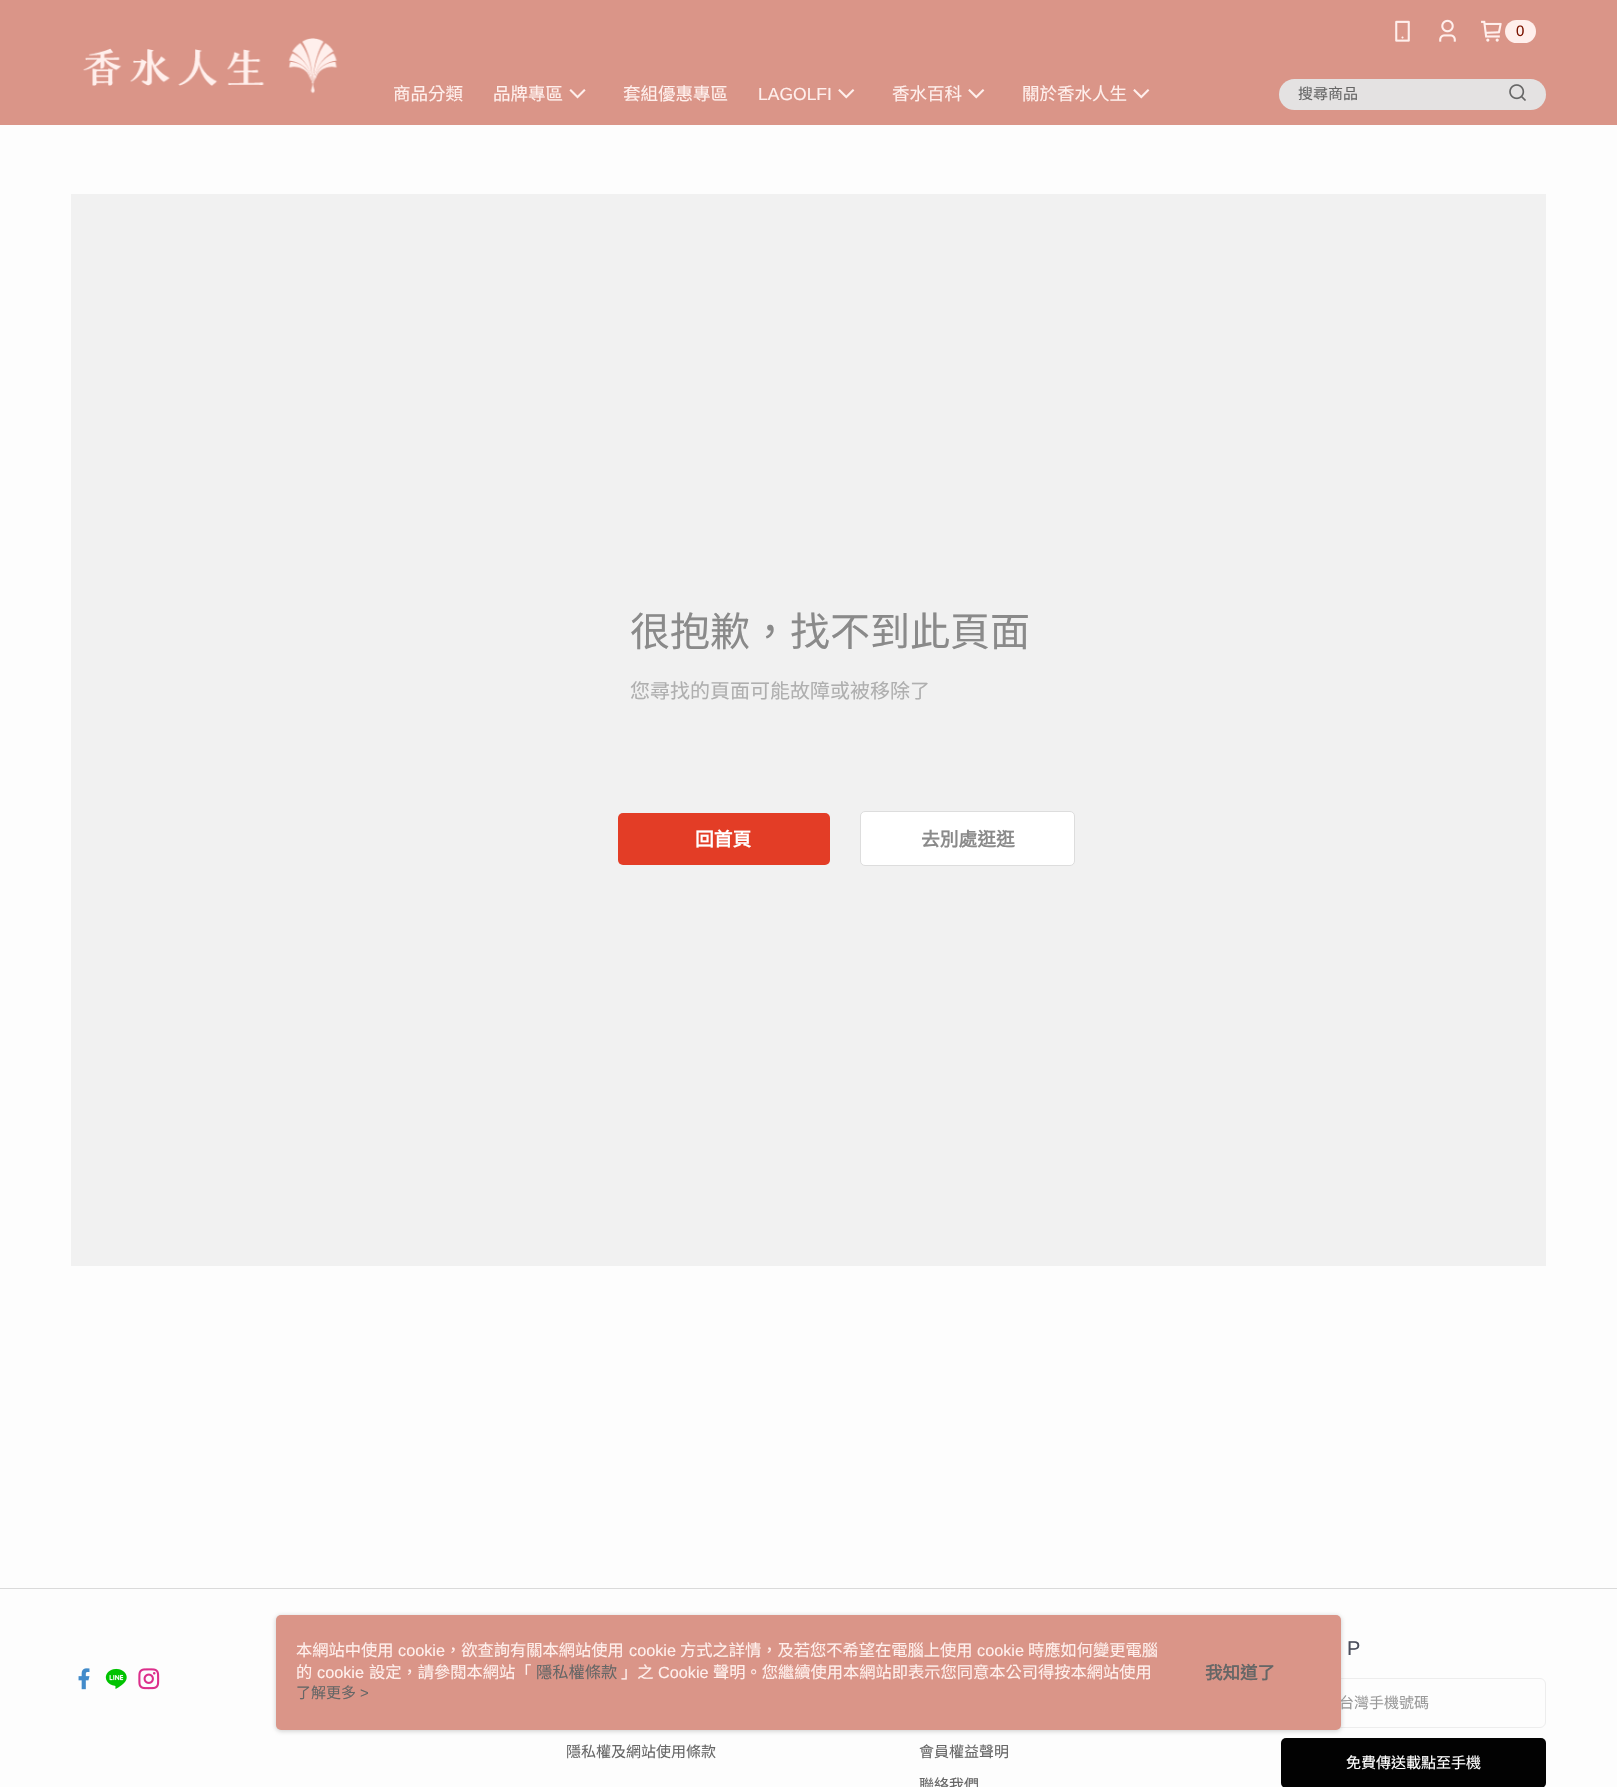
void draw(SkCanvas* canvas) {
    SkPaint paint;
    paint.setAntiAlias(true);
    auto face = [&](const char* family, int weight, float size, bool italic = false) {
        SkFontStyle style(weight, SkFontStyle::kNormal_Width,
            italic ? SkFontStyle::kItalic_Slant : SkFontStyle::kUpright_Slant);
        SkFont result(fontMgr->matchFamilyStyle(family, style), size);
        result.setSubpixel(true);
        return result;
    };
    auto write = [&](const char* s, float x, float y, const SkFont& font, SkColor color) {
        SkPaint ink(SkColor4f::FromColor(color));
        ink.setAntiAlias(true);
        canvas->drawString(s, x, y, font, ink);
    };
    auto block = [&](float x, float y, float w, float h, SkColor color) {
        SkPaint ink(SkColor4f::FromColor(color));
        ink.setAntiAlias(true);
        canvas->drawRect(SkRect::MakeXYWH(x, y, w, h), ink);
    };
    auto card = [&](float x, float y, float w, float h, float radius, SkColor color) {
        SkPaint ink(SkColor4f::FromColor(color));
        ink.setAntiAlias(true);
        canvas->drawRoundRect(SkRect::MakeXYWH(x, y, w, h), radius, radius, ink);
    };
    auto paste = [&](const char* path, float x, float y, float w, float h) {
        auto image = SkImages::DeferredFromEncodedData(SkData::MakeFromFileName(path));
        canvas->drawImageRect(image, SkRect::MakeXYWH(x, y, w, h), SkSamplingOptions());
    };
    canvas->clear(SkColorSetRGB(253, 253, 253));
    block(0, 0, 1617, 125, SkColorSetRGB(218, 149, 136));
    paste("pic1.png", 83, 38, 255, 56);
    paste("pic2.png", 1395, 20, 15, 22);
    paste("pic3.png", 1439, 19, 17, 23);
    paste("pic4.png", 1481, 20, 21, 22);
    card(1505, 20, 31, 23, 11.5f, SkColorSetRGB(255, 239, 236));
    auto kFont1 = face("Liberation Sans", 400, 15);
    write("0", 1516, 36, kFont1, SkColorSetRGB(123, 20, 1));
    auto kFont2 = face("Noto Sans CJK TC", 400, 17.5f);
    write("商品分類", 393, 100, kFont2, SkColorSetRGB(255, 239, 236));
    write("品牌專區", 493, 100, kFont2, SkColorSetRGB(255, 239, 236));
    paste("pic5.png", 569, 89, 17, 10);
    write("套組優惠專區", 623, 100, kFont2, SkColorSetRGB(255, 239, 236));
    auto kFont3 = face("Liberation Sans", 400, 17.5f);
    write("LAGOLFI", 758, 100, kFont3, SkColorSetRGB(255, 239, 236));
    paste("pic6.png", 838, 89, 17, 10);
    write("香水百科", 892, 100, kFont2, SkColorSetRGB(255, 239, 236));
    paste("pic6.png", 968, 89, 17, 10);
    write("關於香水人生", 1022, 100, kFont2, SkColorSetRGB(255, 239, 236));
    paste("pic6.png", 1133, 89, 17, 10);
    card(1279, 79, 267, 31, 15.5f, SkColorSetRGB(228, 226, 226));
    auto kFont4 = face("Noto Sans CJK TC", 400, 15);
    write("搜尋商品", 1298, 99, kFont4, SkColorSetRGB(102, 102, 102));
    paste("pic7.png", 1509, 84, 17, 17);
    block(71, 194, 1475, 1072, SkColorSetRGB(241, 241, 241));
    auto kFont5 = face("Noto Sans CJK TC", 400, 40);
    write("很抱歉，找不到此頁面", 630, 646, kFont5, SkColorSetRGB(138, 138, 138));
    auto kFont6 = face("Noto Sans CJK TC", 400, 20);
    write("您尋找的頁面可能故障或被移除了", 630, 698, kFont6, SkColorSetRGB(175, 175, 175));
    card(618, 813, 212, 52, 5, SkColorSetRGB(227, 61, 38));
    auto kFont7 = face("Noto Sans CJK TC", 700, 18.75f);
    write("回首頁", 695, 846, kFont7, SK_ColorWHITE);
    paint.setColor(SK_ColorWHITE);
    canvas->drawRoundRect(SkRect::MakeXYWH(860.5f, 811.5f, 214, 54), 4.5f, 4.5f, paint);
    paint.setStyle(SkPaint::kStroke_Style);
    paint.setStrokeWidth(1);
    paint.setColor(SkColorSetRGB(221, 221, 221));
    canvas->drawRoundRect(SkRect::MakeXYWH(860.5f, 811.5f, 214, 54), 4.5f, 4.5f, paint);
    write("去別處逛逛", 921, 846, kFont7, SkColorSetRGB(138, 138, 138));
    block(0, 1588, 1617, 1, SkColorSetRGB(218, 218, 218));
    paste("pic8.png", 78, 1668, 12, 22);
    paste("pic9.png", 105, 1668, 22, 21);
    paste("pic10.png", 138, 1668, 22, 22);
    auto kFont8 = face("Liberation Sans", 400, 20);
    write("P", 1347, 1655, kFont8, SkColorSetRGB(74, 78, 92));
    paint.setColor(SkColorSetRGB(237, 237, 237));
    canvas->drawRoundRect(SkRect::MakeXYWH(1281.5f, 1678.5f, 264, 49), 5.5f, 5.5f, paint);
    write("台灣手機號碼", 1339, 1708, kFont4, SkColorSetRGB(153, 153, 153));
    card(1281, 1738, 265, 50, 5, SkColorSetRGB(2, 2, 2));
    write("免費傳送載點至手機", 1346, 1768, kFont4, SK_ColorWHITE);
    write("隱私權及網站使用條款", 566, 1757, kFont4, SkColorSetRGB(102, 102, 102));
    write("會員權益聲明", 919, 1757, kFont4, SkColorSetRGB(102, 102, 102));
    write("聯絡我們", 919, 1790, kFont4, SkColorSetRGB(102, 102, 102));
    paint.setStyle(SkPaint::kFill_Style);
    paint.setColor(SkColorSetARGB(128, 151, 151, 151));
    paint.setMaskFilter(SkMaskFilter::MakeBlur(kNormal_SkBlurStyle, 2.5f));
    canvas->drawRoundRect(SkRect::MakeXYWH(276, 1616, 1065, 115), 5, 5, paint);
    paint.setMaskFilter(nullptr);
    card(276, 1615, 1065, 115, 5, SkColorSetRGB(218, 149, 136));
    auto kFont9 = face("Noto Sans CJK TC", 400, 16.25f);
    write("本網站中使用", 296, 1656, kFont9, SkColorSetRGB(255, 239, 236));
    auto kFont10 = face("Liberation Sans", 400, 16.25f);
    write("cookie", 398, 1656, kFont10, SkColorSetRGB(255, 239, 236));
    write("，欲查詢有關本網站使用", 445, 1656, kFont9, SkColorSetRGB(255, 239, 236));
    write("cookie", 629, 1656, kFont10, SkColorSetRGB(255, 239, 236));
    write("方式之詳情，及若您不希望在電腦上使用", 680, 1656, kFont9, SkColorSetRGB(255, 239, 236));
    write("cookie", 977, 1656, kFont10, SkColorSetRGB(255, 239, 236));
    write("時應如何變更電腦", 1028, 1656, kFont9, SkColorSetRGB(255, 239, 236));
    write("的", 296, 1678, kFont9, SkColorSetRGB(255, 239, 236));
    write("cookie", 317, 1678, kFont10, SkColorSetRGB(255, 239, 236));
    write("設定，請參閱本網站「", 369, 1678, kFont9, SkColorSetRGB(255, 239, 236));
    write("隱私權條款", 536, 1678, kFont9, SkColorSetRGB(102, 102, 102));
    write("」之", 621, 1678, kFont9, SkColorSetRGB(255, 239, 236));
    write("Cookie", 658, 1678, kFont10, SkColorSetRGB(255, 239, 236));
    write("聲明。您繼續使用本網站即表示您同意本公司得按本網站使用", 713, 1678, kFont9, SkColorSetRGB(255, 239, 236));
    write("了解更多", 296, 1698, kFont4, SkColorSetRGB(102, 102, 102));
    write(">", 360, 1698, kFont1, SkColorSetRGB(102, 102, 102));
    auto kFont11 = face("Noto Sans CJK TC", 700, 17.5f);
    write("我知道了", 1205, 1679, kFont11, SkColorSetRGB(102, 102, 102));
}
